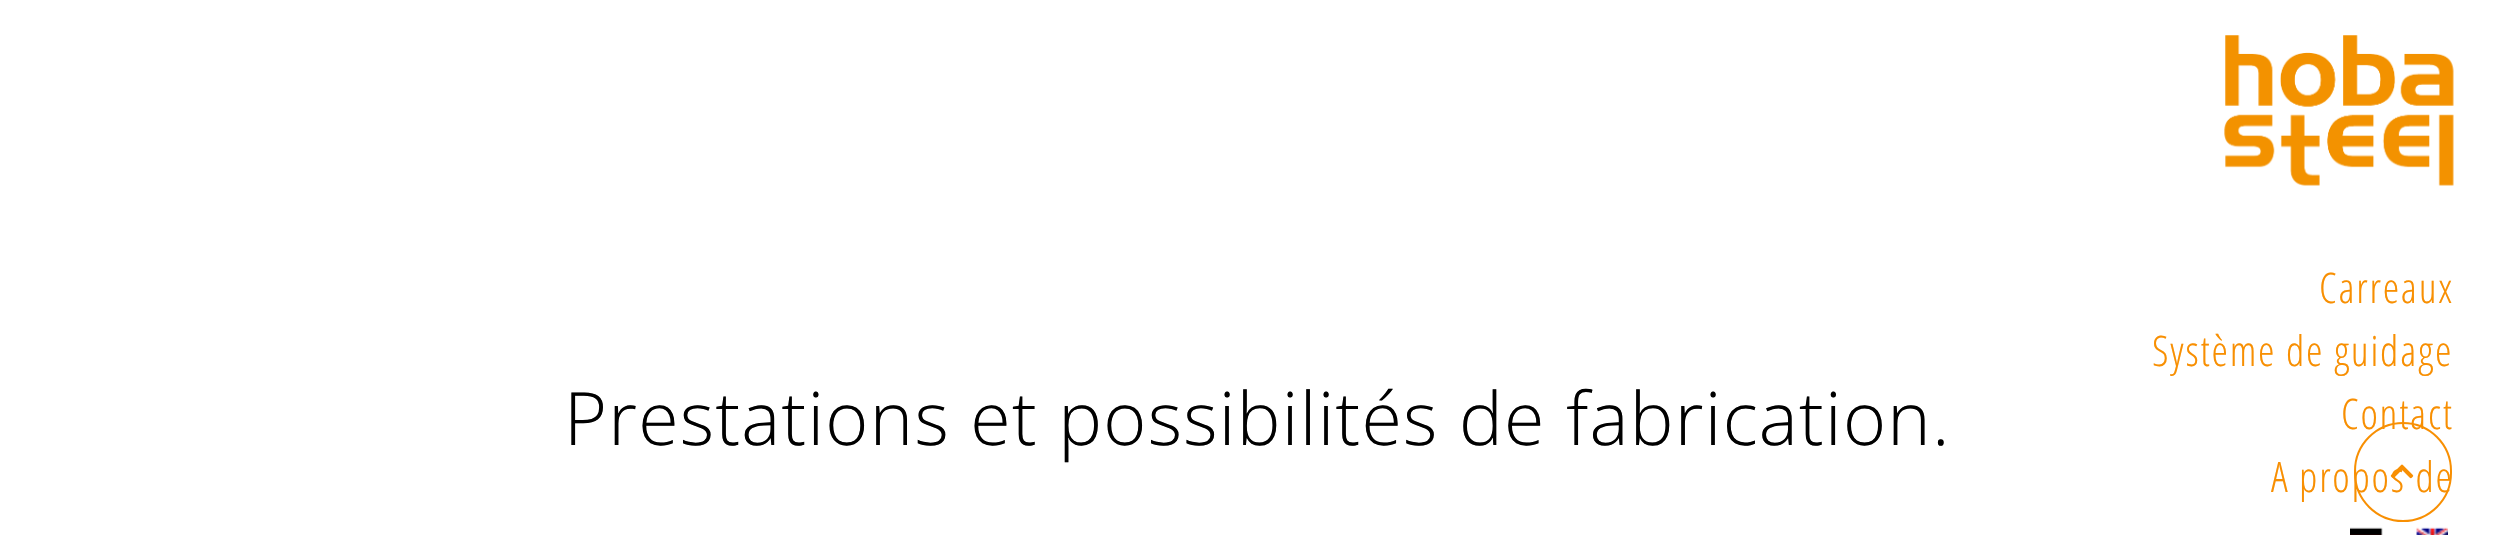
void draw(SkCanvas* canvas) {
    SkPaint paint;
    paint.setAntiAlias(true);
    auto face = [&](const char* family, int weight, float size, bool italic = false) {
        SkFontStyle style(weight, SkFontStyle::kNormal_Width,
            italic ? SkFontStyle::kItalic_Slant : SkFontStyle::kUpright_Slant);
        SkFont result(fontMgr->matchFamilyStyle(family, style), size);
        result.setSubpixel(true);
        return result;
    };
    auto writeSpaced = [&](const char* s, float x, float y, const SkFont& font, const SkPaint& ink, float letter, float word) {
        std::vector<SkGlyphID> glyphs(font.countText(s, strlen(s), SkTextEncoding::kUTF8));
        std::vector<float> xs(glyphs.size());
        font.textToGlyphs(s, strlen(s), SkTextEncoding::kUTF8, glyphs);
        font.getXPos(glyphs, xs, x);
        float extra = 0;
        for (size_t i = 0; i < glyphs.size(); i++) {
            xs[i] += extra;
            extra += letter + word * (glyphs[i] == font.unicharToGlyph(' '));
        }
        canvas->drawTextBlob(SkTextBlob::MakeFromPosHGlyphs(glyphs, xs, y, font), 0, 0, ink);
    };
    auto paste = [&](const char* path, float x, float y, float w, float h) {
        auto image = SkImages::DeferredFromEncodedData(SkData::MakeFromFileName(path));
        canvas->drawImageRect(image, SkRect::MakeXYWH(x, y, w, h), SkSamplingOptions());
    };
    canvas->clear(SK_ColorWHITE);
    auto kFont1 = face("Open Sans", 300, 73.5f);
    paint.setColor(SK_ColorBLACK);
    writeSpaced("Prestations et possibilités de fabrication.", 564, 445, kFont1, paint, 1.3f, 0);
    paste("pic1.png", 2224, 35, 230, 151);
    auto kFont2 = face("Open Sans Condensed", 300, 42);
    paint.setColor(SkColorSetRGB(248, 143, 2));
    writeSpaced("Carreaux", 2319, 303, kFont2, paint, 1.75f, 0);
    writeSpaced("Système de guidage", 2152, 366, kFont2, paint, 1.75f, 0);
    paint.setStyle(SkPaint::kStroke_Style);
    paint.setStrokeWidth(2);
    canvas->drawRoundRect(SkRect::MakeXYWH(2355, 423, 96, 98), 48, 48, paint);
    paint.setStyle(SkPaint::kFill_Style);
    writeSpaced("Contact", 2341, 429, kFont2, paint, 1.75f, 0);
    paste("pic4.png", 2390, 464, 24, 15);
    writeSpaced("A propos de", 2271, 492, kFont2, paint, 1.75f, 0);
    paste("pic2.png", 2350, 527, 33, 8);
    paste("pic3.png", 2416, 527, 32, 8);
}
